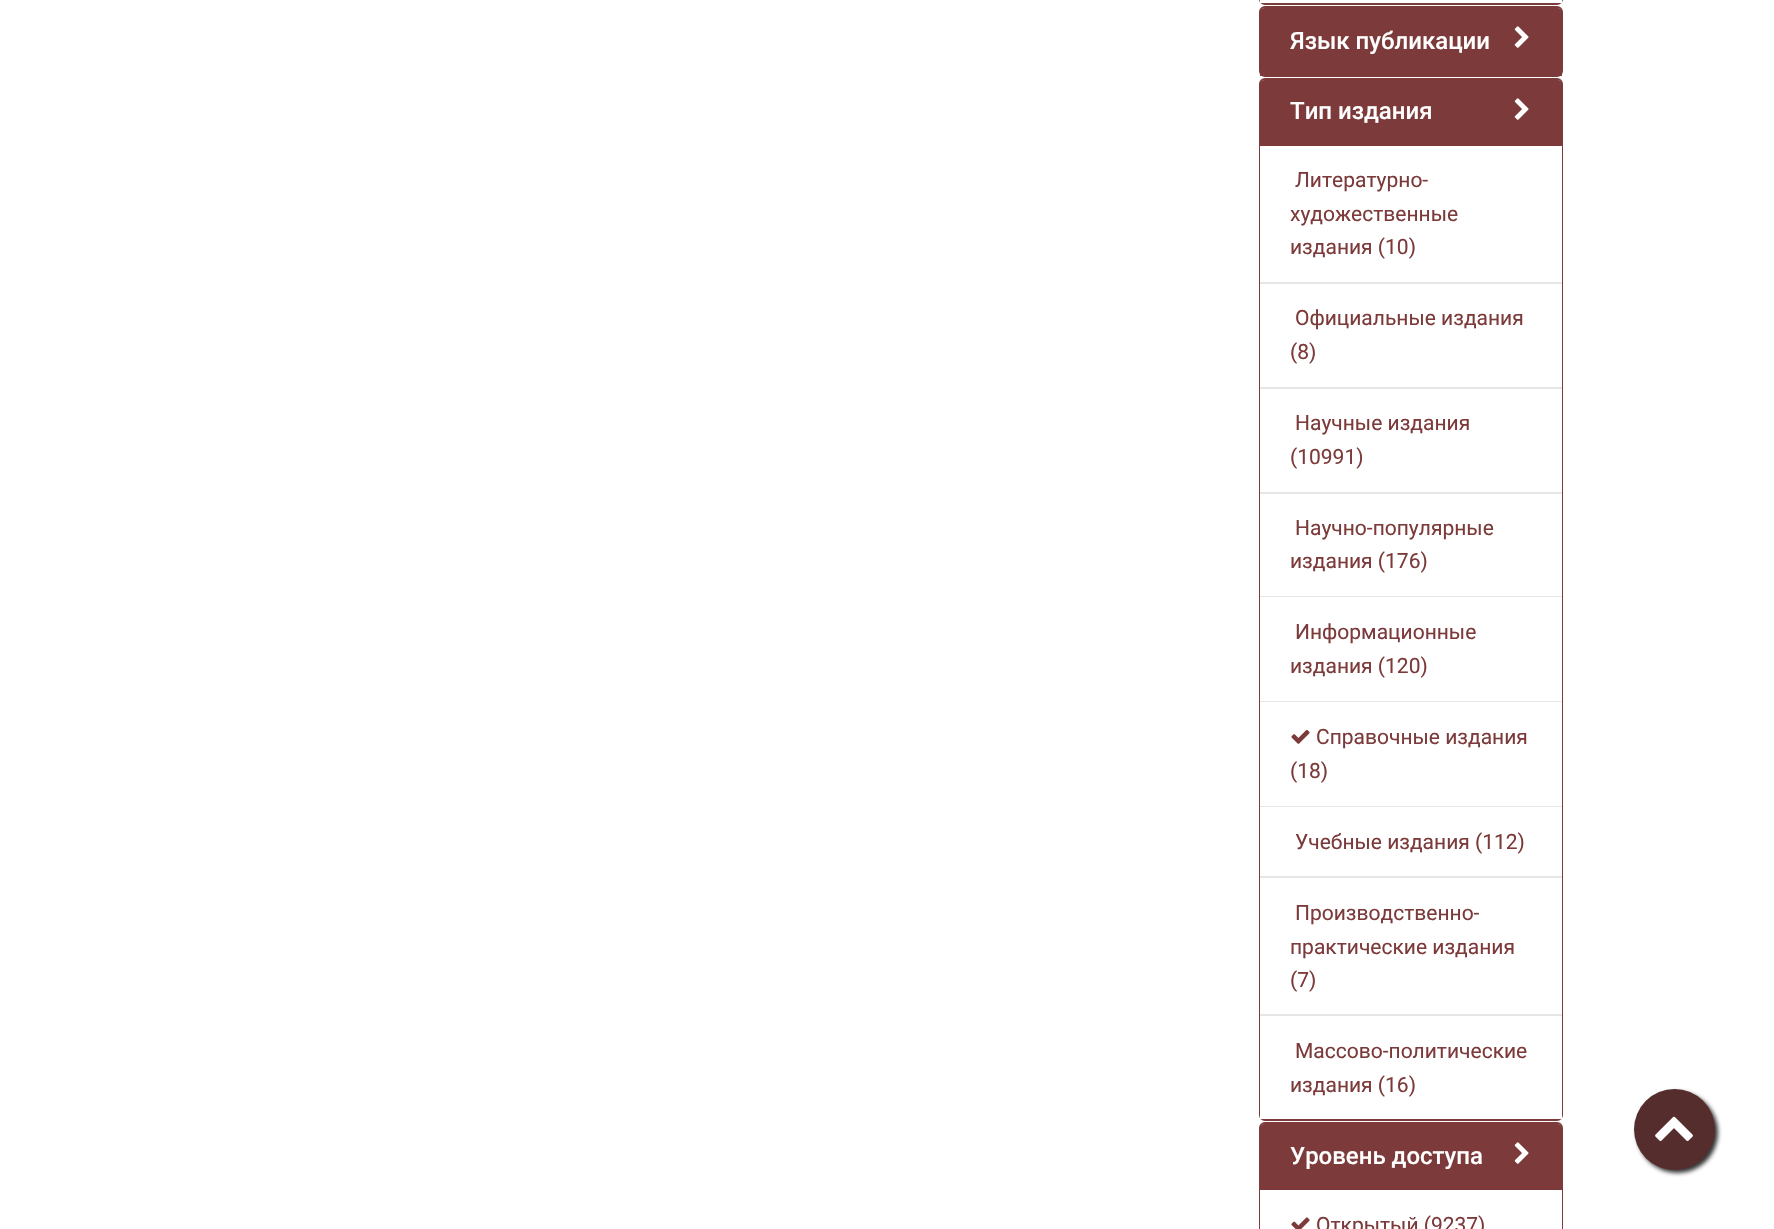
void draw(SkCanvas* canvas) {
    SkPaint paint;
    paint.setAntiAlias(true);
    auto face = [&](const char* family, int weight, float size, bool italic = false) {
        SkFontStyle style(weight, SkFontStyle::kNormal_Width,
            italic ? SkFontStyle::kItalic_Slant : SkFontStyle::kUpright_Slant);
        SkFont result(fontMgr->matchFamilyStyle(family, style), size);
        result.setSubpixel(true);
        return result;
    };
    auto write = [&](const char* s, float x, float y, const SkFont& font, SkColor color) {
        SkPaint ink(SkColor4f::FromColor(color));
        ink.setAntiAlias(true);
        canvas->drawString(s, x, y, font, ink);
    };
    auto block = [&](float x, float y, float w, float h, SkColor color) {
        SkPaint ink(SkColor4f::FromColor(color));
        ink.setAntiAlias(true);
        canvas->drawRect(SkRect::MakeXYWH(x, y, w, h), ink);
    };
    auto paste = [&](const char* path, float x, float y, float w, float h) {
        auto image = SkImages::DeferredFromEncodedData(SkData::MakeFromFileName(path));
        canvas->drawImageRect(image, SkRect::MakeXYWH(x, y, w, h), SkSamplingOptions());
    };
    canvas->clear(SK_ColorWHITE);
    paint.setStyle(SkPaint::kStroke_Style);
    paint.setStrokeWidth(2);
    paint.setColor(SkColorSetRGB(124, 58, 58));
    canvas->drawRoundRect(SkRect::MakeXYWH(1260, -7, 302, 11), 5, 5, paint);
    block(1260, 0, 302, 3, SK_ColorWHITE);
    canvas->drawRoundRect(SkRect::MakeXYWH(1260, 7, 302, 69), 5, 5, paint);
    paint.setStyle(SkPaint::kFill_Style);
    canvas->drawPath(SkPathBuilder().moveTo(1265, 8).lineTo(1557, 8).cubicTo(1560, 8, 1562, 10, 1562, 13).lineTo(1562, 75).lineTo(1260, 75).lineTo(1260, 13).cubicTo(1260, 10, 1262, 8, 1265, 8).close().detach(), paint);
    block(1260, 75, 302, 1, SkColorSetRGB(124, 58, 58));
    auto kFont1 = face("Roboto", 500, 24);
    write("Язык публикации", 1290, 49, kFont1, SK_ColorWHITE);
    paste("pic1.png", 1514, 26, 15, 22);
    paint.setStyle(SkPaint::kStroke_Style);
    canvas->drawRoundRect(SkRect::MakeXYWH(1260, 79, 302, 1041), 5, 5, paint);
    paint.setStyle(SkPaint::kFill_Style);
    canvas->drawPath(SkPathBuilder().moveTo(1265, 80).lineTo(1557, 80).cubicTo(1560, 80, 1562, 82, 1562, 85).lineTo(1562, 146).lineTo(1260, 146).lineTo(1260, 85).cubicTo(1260, 82, 1262, 80, 1265, 80).close().detach(), paint);
    write("Тип издания", 1290, 119, kFont1, SK_ColorWHITE);
    paste("pic1.png", 1514, 98, 15, 22);
    block(1260, 146, 302, 136, SK_ColorWHITE);
    block(1260, 282, 302, 2, SkColorSetRGB(230, 230, 230));
    auto kFont2 = face("Roboto", 400, 21);
    write("Литературно-", 1295, 187, kFont2, SkColorSetRGB(124, 58, 58));
    write("художественные", 1290, 221, kFont2, SkColorSetRGB(124, 58, 58));
    write("издания (10)", 1290, 254, kFont2, SkColorSetRGB(124, 58, 58));
    block(1260, 284, 302, 103, SK_ColorWHITE);
    block(1260, 387, 302, 2, SkColorSetRGB(230, 230, 230));
    write("Официальные издания", 1295, 325, kFont2, SkColorSetRGB(124, 58, 58));
    write("(8)", 1290, 359, kFont2, SkColorSetRGB(124, 58, 58));
    block(1260, 389, 302, 103, SK_ColorWHITE);
    block(1260, 492, 302, 2, SkColorSetRGB(230, 230, 230));
    write("Научные издания", 1295, 430, kFont2, SkColorSetRGB(124, 58, 58));
    write("(10991)", 1290, 464, kFont2, SkColorSetRGB(124, 58, 58));
    block(1260, 494, 302, 102, SK_ColorWHITE);
    block(1260, 596, 302, 1, SkColorSetRGB(230, 230, 230));
    write("Научно-популярные", 1295, 535, kFont2, SkColorSetRGB(124, 58, 58));
    write("издания (176)", 1290, 568, kFont2, SkColorSetRGB(124, 58, 58));
    block(1260, 597, 302, 104, SK_ColorWHITE);
    block(1260, 701, 302, 1, SkColorSetRGB(230, 230, 230));
    write("Информационные", 1295, 639, kFont2, SkColorSetRGB(124, 58, 58));
    write("издания (120)", 1290, 673, kFont2, SkColorSetRGB(124, 58, 58));
    block(1260, 702, 302, 104, SK_ColorWHITE);
    block(1260, 806, 302, 1, SkColorSetRGB(230, 230, 230));
    paste("pic2.png", 1291, 729, 19, 15);
    write("Справочные издания", 1316, 744, kFont2, SkColorSetRGB(124, 58, 58));
    write("(18)", 1290, 778, kFont2, SkColorSetRGB(124, 58, 58));
    block(1260, 807, 302, 69, SK_ColorWHITE);
    block(1260, 876, 302, 2, SkColorSetRGB(230, 230, 230));
    write("Учебные издания (112)", 1295, 849, kFont2, SkColorSetRGB(124, 58, 58));
    block(1260, 878, 302, 136, SK_ColorWHITE);
    block(1260, 1014, 302, 2, SkColorSetRGB(230, 230, 230));
    write("Производственно-", 1295, 920, kFont2, SkColorSetRGB(124, 58, 58));
    write("практические издания", 1290, 954, kFont2, SkColorSetRGB(124, 58, 58));
    write("(7)", 1290, 987, kFont2, SkColorSetRGB(124, 58, 58));
    block(1260, 1016, 302, 103, SK_ColorWHITE);
    write("Массово-политические", 1295, 1058, kFont2, SkColorSetRGB(124, 58, 58));
    write("издания (16)", 1290, 1092, kFont2, SkColorSetRGB(124, 58, 58));
    paint.setStyle(SkPaint::kStroke_Style);
    canvas->drawRoundRect(SkRect::MakeXYWH(1260, 1123, 302, 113), 5, 5, paint);
    paint.setStyle(SkPaint::kFill_Style);
    canvas->drawPath(SkPathBuilder().moveTo(1265, 1124).lineTo(1557, 1124).cubicTo(1560, 1124, 1562, 1126, 1562, 1129).lineTo(1562, 1190).lineTo(1260, 1190).lineTo(1260, 1129).cubicTo(1260, 1126, 1262, 1124, 1265, 1124).close().detach(), paint);
    write("Уровень доступа", 1290, 1164, kFont1, SK_ColorWHITE);
    paste("pic1.png", 1514, 1142, 15, 22);
    block(1260, 1190, 302, 39, SK_ColorWHITE);
    paste("pic3.png", 1291, 1217, 19, 12);
    write("Открытый (9237)", 1316, 1232, kFont2, SkColorSetRGB(124, 58, 58));
    paint.setColor(SkColorSetRGB(51, 51, 51));
    paint.setMaskFilter(SkMaskFilter::MakeBlur(kNormal_SkBlurStyle, 2));
    canvas->drawRoundRect(SkRect::MakeXYWH(1637, 1092, 81, 81), 40.5f, 40.5f, paint);
    paint.setMaskFilter(nullptr);
    paint.setColor(SkColorSetRGB(86, 45, 45));
    canvas->drawCircle(1674.5f, 1129.5f, 40.5f, paint);
    paste("pic4.png", 1655, 1116, 38, 25);
}
